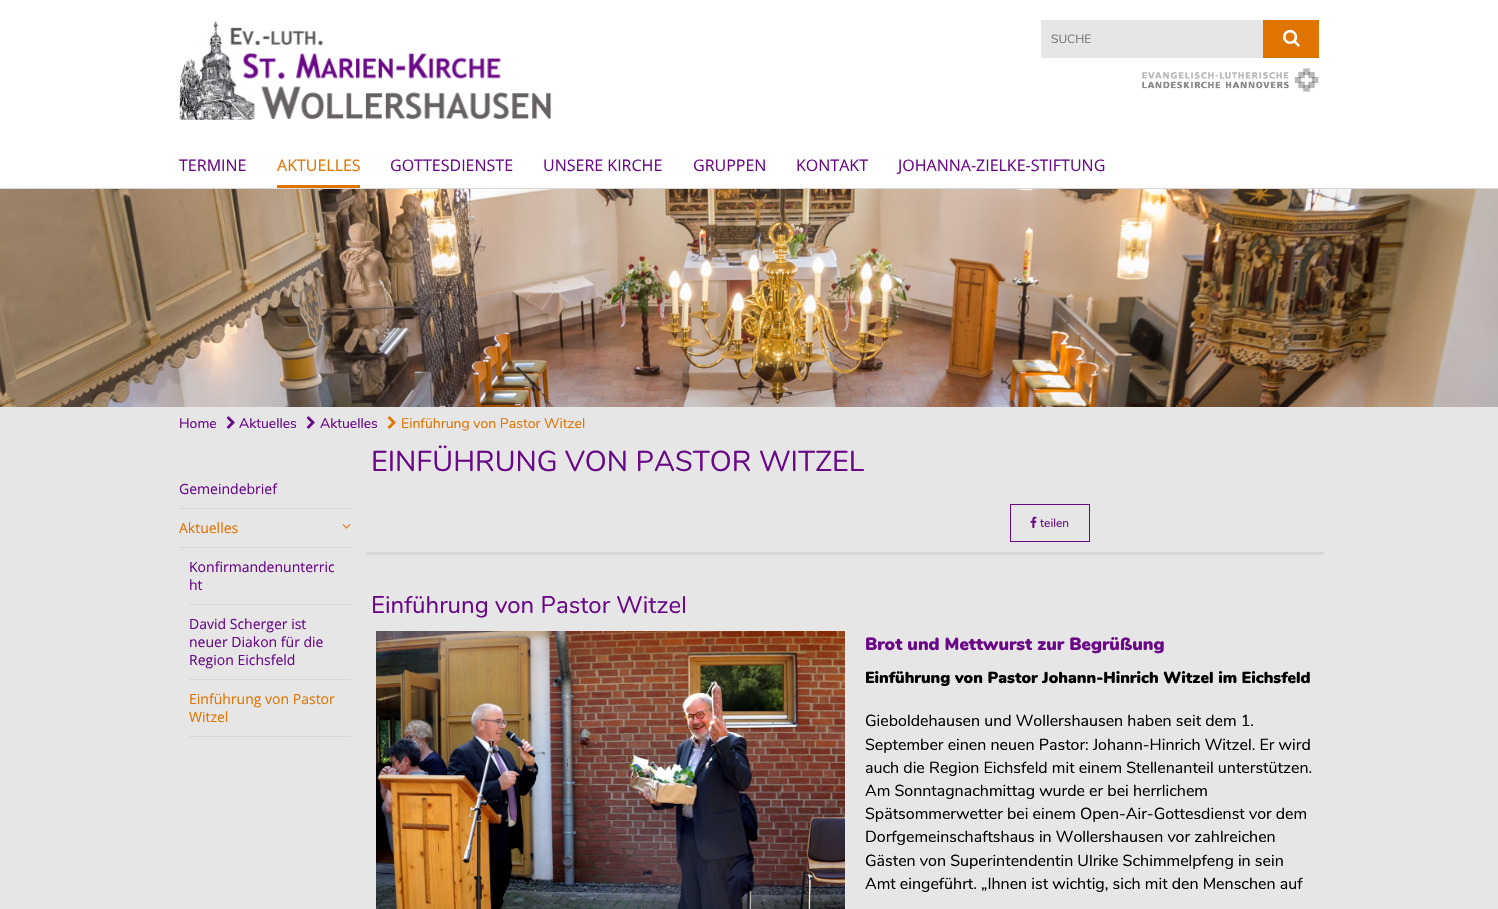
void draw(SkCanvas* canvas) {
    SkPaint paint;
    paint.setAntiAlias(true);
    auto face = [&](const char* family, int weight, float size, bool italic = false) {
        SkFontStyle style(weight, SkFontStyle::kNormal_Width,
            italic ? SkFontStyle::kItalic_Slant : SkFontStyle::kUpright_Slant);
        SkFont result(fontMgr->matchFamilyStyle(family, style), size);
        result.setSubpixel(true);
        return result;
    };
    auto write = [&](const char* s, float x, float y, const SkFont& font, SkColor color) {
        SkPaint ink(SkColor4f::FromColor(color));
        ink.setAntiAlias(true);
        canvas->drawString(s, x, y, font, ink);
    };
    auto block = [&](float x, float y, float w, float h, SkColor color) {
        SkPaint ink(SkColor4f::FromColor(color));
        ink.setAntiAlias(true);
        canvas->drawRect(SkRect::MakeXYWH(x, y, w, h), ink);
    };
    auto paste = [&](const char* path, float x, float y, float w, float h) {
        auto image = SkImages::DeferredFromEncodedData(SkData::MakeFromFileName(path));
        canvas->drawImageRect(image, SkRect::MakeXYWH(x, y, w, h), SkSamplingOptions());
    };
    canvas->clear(SkColorSetRGB(230, 230, 230));
    block(0, 0, 1498, 188, SK_ColorWHITE);
    block(0, 188, 1498, 1, SkColorSetRGB(216, 216, 216));
    paste("pic1.png", 179, 21, 373, 99);
    block(1041, 20, 222, 38, SkColorSetRGB(230, 230, 230));
    auto kFont1 = face("Nunito", 400, 12);
    write("SUCHE", 1051, 43, kFont1, SkColorSetRGB(117, 117, 117));
    block(1263, 20, 56, 38, SkColorSetRGB(223, 116, 1));
    paste("pic2.png", 1283, 29, 17, 18);
    paste("pic3.png", 1142, 68, 177, 24);
    auto kFont2 = face("Open Sans", 400, 16);
    write("TERMINE", 179, 171, kFont2, SkColorSetRGB(106, 8, 136));
    block(277, 185, 83, 3, SkColorSetRGB(223, 116, 1));
    write("AKTUELLES", 277, 171, kFont2, SkColorSetRGB(223, 116, 1));
    write("GOTTESDIENSTE", 390, 171, kFont2, SkColorSetRGB(106, 8, 136));
    write("UNSERE KIRCHE", 543, 171, kFont2, SkColorSetRGB(106, 8, 136));
    write("GRUPPEN", 693, 171, kFont2, SkColorSetRGB(106, 8, 136));
    write("KONTAKT", 796, 171, kFont2, SkColorSetRGB(106, 8, 136));
    write("JOHANNA-ZIELKE-STIFTUNG", 898, 171, kFont2, SkColorSetRGB(106, 8, 136));
    paste("pic4.png", 0, 189, 1498, 218);
    auto kFont3 = face("Nunito", 400, 14);
    write("Home", 179, 428, kFont3, SkColorSetRGB(106, 8, 136));
    paste("pic5.png", 226, 416, 9, 13);
    write("Aktuelles", 239, 428, kFont3, SkColorSetRGB(106, 8, 136));
    paste("pic5.png", 306, 416, 9, 13);
    write("Aktuelles", 320, 428, kFont3, SkColorSetRGB(106, 8, 136));
    paste("pic6.png", 387, 416, 9, 13);
    write("Einführung von Pastor Witzel", 401, 428, kFont3, SkColorSetRGB(223, 116, 1));
    block(179, 508, 172, 1, SkColorSetRGB(216, 216, 216));
    auto kFont4 = face("Open Sans", 400, 14);
    write("Gemeindebrief", 179, 494, kFont4, SkColorSetRGB(106, 8, 136));
    block(179, 547, 172, 1, SkColorSetRGB(216, 216, 216));
    write("Aktuelles", 179, 533, kFont4, SkColorSetRGB(223, 116, 1));
    paste("pic7.png", 342, 524, 9, 5);
    block(189, 604, 162, 1, SkColorSetRGB(216, 216, 216));
    write("Konfirmandenunterric", 189, 572, kFont4, SkColorSetRGB(106, 8, 136));
    write("ht", 189, 590, kFont4, SkColorSetRGB(106, 8, 136));
    block(189, 679, 162, 1, SkColorSetRGB(216, 216, 216));
    write("David Scherger ist", 189, 629, kFont4, SkColorSetRGB(106, 8, 136));
    write("neuer Diakon für die", 189, 647, kFont4, SkColorSetRGB(106, 8, 136));
    write("Region Eichsfeld", 189, 665, kFont4, SkColorSetRGB(106, 8, 136));
    block(189, 736, 162, 1, SkColorSetRGB(216, 216, 216));
    write("Einführung von Pastor", 189, 704, kFont4, SkColorSetRGB(223, 116, 1));
    write("Witzel", 189, 722, kFont4, SkColorSetRGB(223, 116, 1));
    auto kFont5 = face("Nunito", 400, 28.75f);
    write("EINFÜHRUNG VON PASTOR WITZEL", 371, 471, kFont5, SkColorSetRGB(106, 8, 136));
    block(366, 552, 958, 3, SkColorSetRGB(216, 216, 216));
    paint.setStyle(SkPaint::kStroke_Style);
    paint.setStrokeWidth(1);
    paint.setColor(SkColorSetRGB(106, 8, 136));
    canvas->drawRect(SkRect::MakeXYWH(1010.5f, 504.5f, 79, 37), paint);
    paste("pic8.png", 1030, 516, 7, 12);
    write("teilen", 1040, 527, kFont1, SkColorSetRGB(106, 8, 136));
    auto kFont6 = face("Nunito", 400, 24);
    write("Einführung von Pastor Witzel", 371, 613, kFont6, SkColorSetRGB(106, 8, 136));
    paste("pic9.png", 376, 631, 469, 278);
    auto kFont7 = face("Nunito", 900, 17.6f);
    write("Brot und Mettwurst zur Begrüßung", 865, 650, kFont7, SkColorSetRGB(106, 8, 136));
    auto kFont8 = face("Nunito", 900, 16);
    write("Einführung von Pastor Johann-Hinrich Witzel im Eichsfeld", 865, 683, kFont8, SK_ColorBLACK);
    auto kFont9 = face("Nunito", 400, 16);
    write("Gieboldehausen und Wollershausen haben seit dem 1.", 865, 726, kFont9, SK_ColorBLACK);
    write("September einen neuen Pastor: Johann-Hinrich Witzel. Er wird", 865, 750, kFont9, SK_ColorBLACK);
    write("auch die Region Eichsfeld mit einem Stellenanteil unterstützen.", 865, 773, kFont9, SK_ColorBLACK);
    write("Am Sonntagnachmittag wurde er bei herrlichem", 865, 796, kFont9, SK_ColorBLACK);
    write("Spätsommerwetter bei einem Open-Air-Gottesdienst vor dem", 865, 819, kFont9, SK_ColorBLACK);
    write("Dorfgemeinschaftshaus in Wollershausen vor zahlreichen", 865, 842, kFont9, SK_ColorBLACK);
    write("Gästen von Superintendentin Ulrike Schimmelpfeng in sein", 865, 866, kFont9, SK_ColorBLACK);
    write("Amt eingeführt. „Ihnen ist wichtig, sich mit den Menschen auf", 865, 889, kFont9, SK_ColorBLACK);
}
